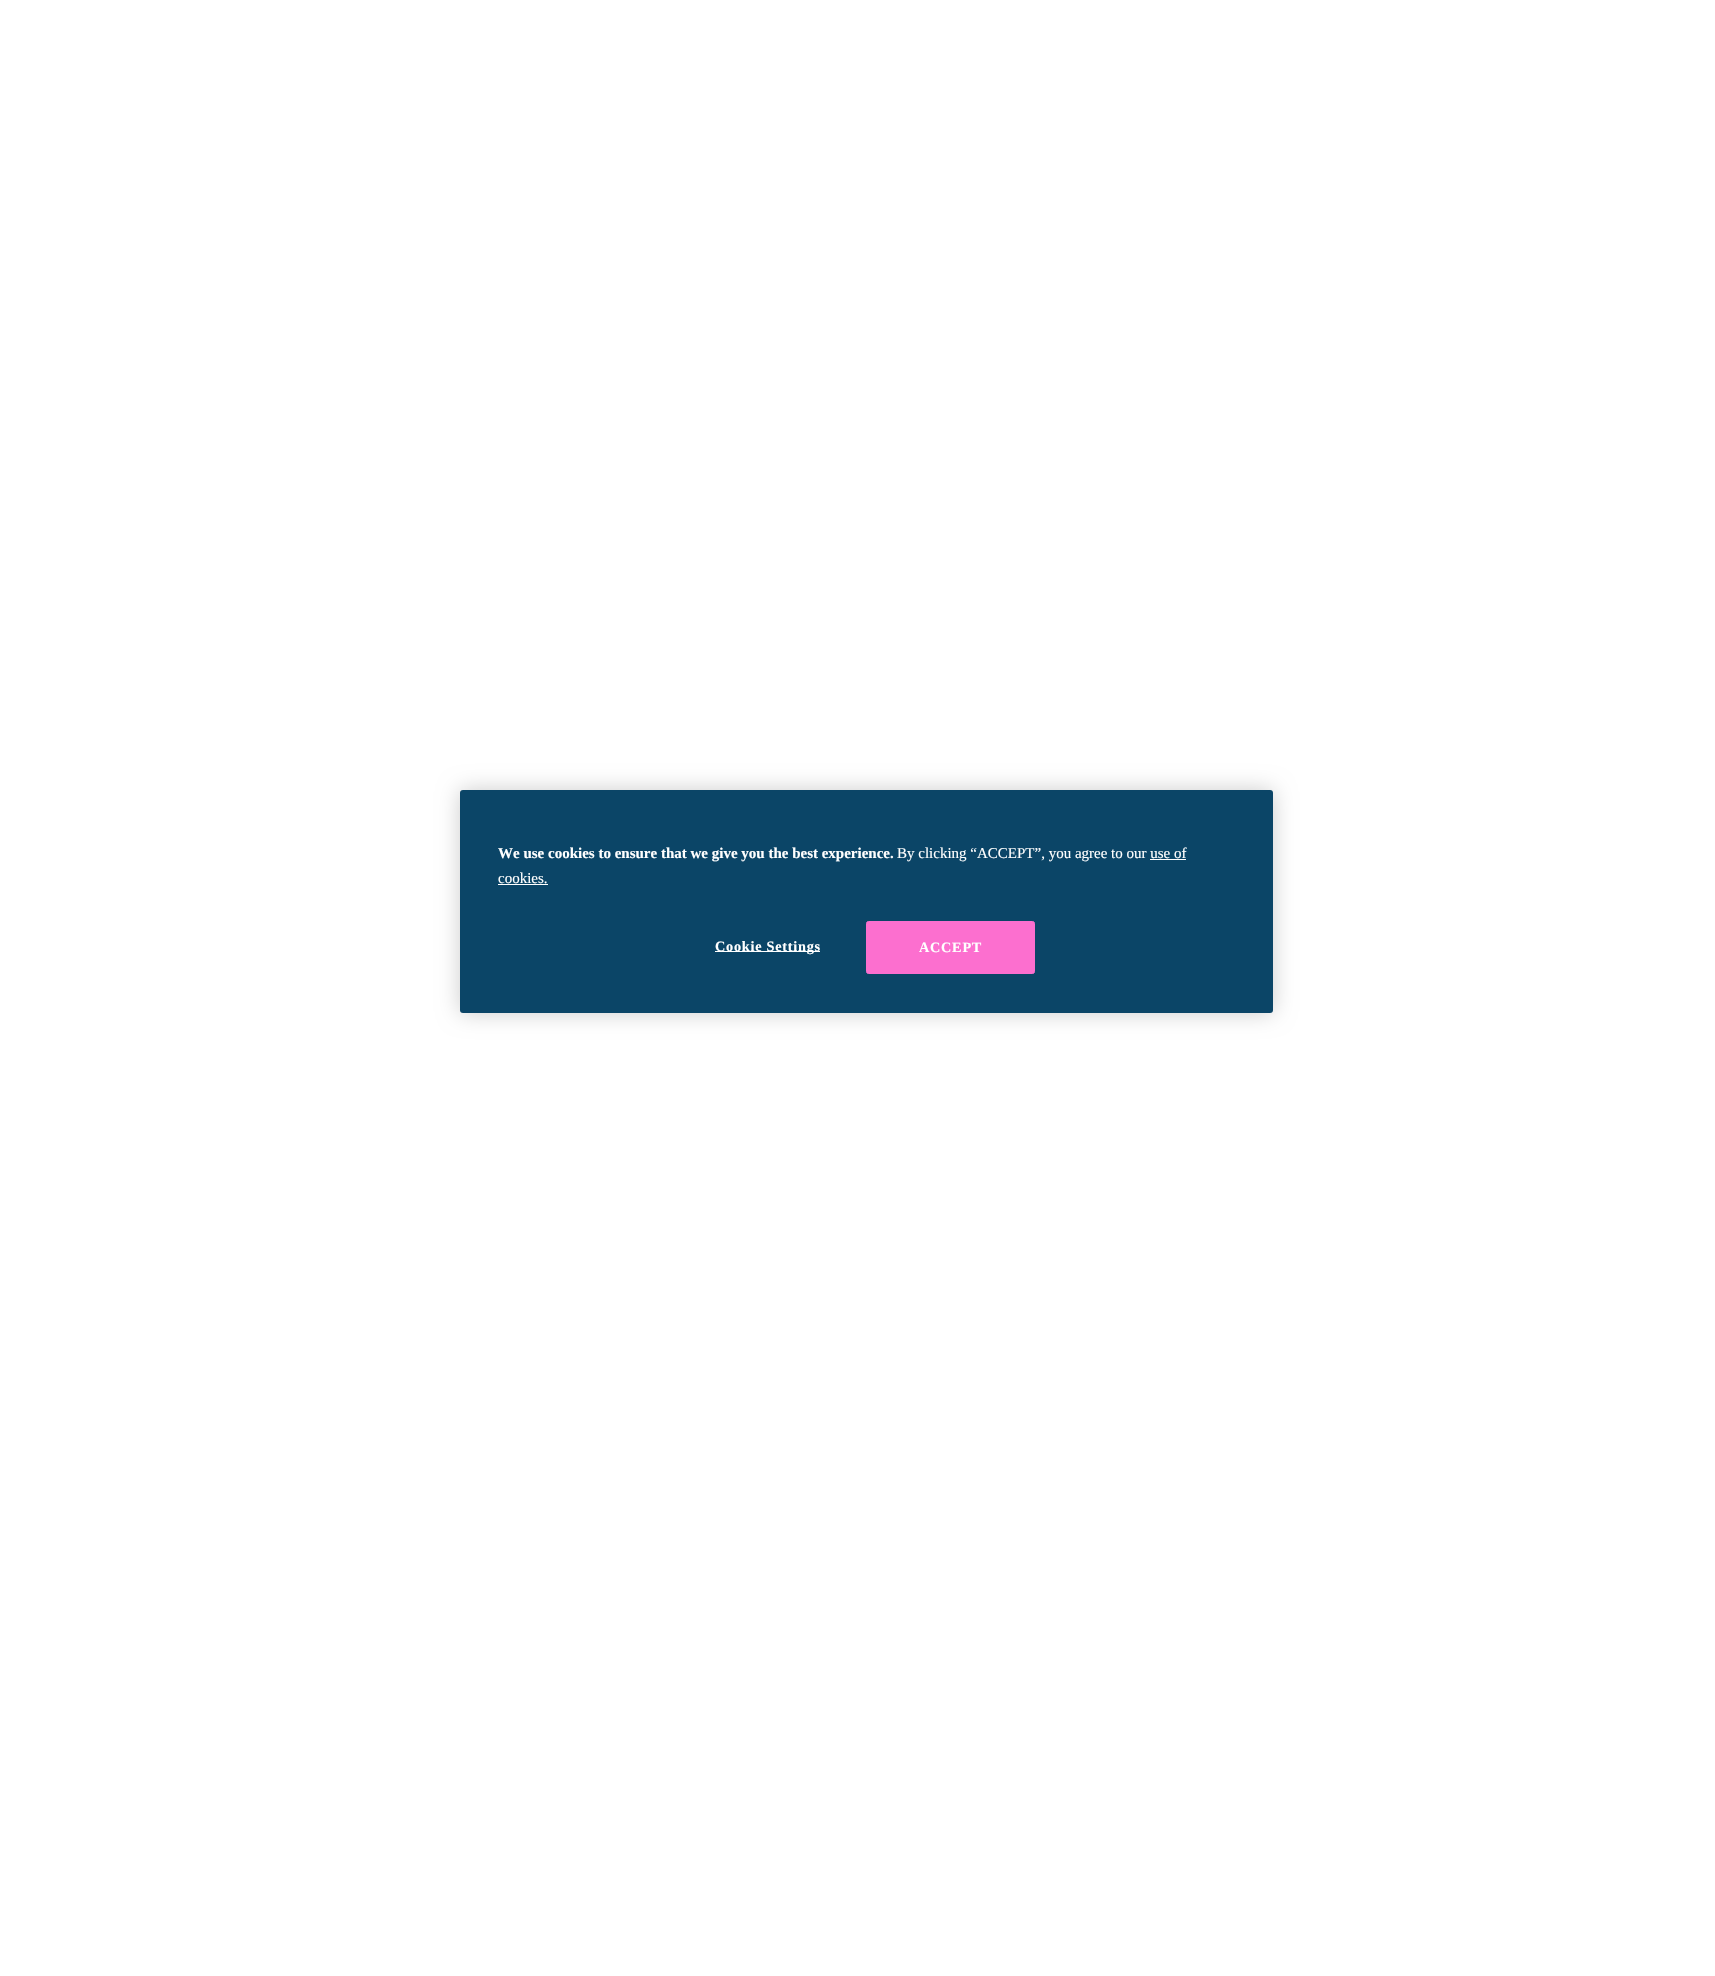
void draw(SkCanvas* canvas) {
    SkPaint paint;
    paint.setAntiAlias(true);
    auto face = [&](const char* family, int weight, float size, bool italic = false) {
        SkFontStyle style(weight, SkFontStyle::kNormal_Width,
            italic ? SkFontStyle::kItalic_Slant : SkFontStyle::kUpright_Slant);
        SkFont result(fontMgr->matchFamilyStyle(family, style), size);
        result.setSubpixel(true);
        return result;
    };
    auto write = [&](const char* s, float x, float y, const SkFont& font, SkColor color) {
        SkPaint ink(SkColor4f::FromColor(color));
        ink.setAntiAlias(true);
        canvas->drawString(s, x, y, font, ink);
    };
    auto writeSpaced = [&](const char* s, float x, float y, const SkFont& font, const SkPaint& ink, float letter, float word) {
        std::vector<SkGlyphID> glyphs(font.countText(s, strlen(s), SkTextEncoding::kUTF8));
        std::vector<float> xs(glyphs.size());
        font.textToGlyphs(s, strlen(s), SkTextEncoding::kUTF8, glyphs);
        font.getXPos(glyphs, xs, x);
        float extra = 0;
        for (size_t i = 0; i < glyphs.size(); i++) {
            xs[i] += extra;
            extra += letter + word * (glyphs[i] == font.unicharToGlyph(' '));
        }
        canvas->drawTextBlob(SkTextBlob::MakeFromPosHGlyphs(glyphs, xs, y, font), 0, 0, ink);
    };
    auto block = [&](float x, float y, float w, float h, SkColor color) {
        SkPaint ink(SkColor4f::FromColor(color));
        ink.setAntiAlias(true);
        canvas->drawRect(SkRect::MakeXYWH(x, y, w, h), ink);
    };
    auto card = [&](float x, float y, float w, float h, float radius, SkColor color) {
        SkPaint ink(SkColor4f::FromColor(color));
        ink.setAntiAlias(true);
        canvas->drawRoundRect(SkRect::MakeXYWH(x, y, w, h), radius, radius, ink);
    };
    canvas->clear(SK_ColorWHITE);
    paint.setColor(SkColorSetARGB(51, 0, 0, 0));
    paint.setMaskFilter(SkMaskFilter::MakeBlur(kNormal_SkBlurStyle, 11));
    canvas->drawRoundRect(SkRect::MakeXYWH(460, 790, 813, 223), 3, 3, paint);
    paint.setMaskFilter(nullptr);
    card(460, 790, 813, 223, 3, SkColorSetRGB(11, 69, 103));
    auto kFont1 = face("Liberation Serif", 700, 15);
    write("We use cookies to ensure that we give you the best experience.", 498, 858, kFont1, SK_ColorWHITE);
    auto kFont2 = face("Liberation Serif", 400, 15);
    write("By clicking “ACCEPT”, you agree to our use of", 897, 858, kFont2, SK_ColorWHITE);
    write("cookies.", 498, 883, kFont2, SK_ColorWHITE);
    block(1150, 859, 36, 1, SK_ColorWHITE);
    block(498, 884, 50, 1, SK_ColorWHITE);
    block(715, 951, 105, 1, SK_ColorWHITE);
    auto kFont3 = face("Liberation Serif", 700, 14.25f);
    paint.setColor(SK_ColorWHITE);
    writeSpaced("Cookie Settings", 715, 951, kFont3, paint, 0.75f, 0);
    paint.setColor(SkColorSetRGB(252, 111, 207));
    canvas->drawRoundRect(SkRect::MakeXYWH(866.5f, 921.5f, 168, 52), 2, 2, paint);
    paint.setStyle(SkPaint::kStroke_Style);
    paint.setStrokeWidth(1);
    canvas->drawRoundRect(SkRect::MakeXYWH(866.5f, 921.5f, 168, 52), 2, 2, paint);
    paint.setStyle(SkPaint::kFill_Style);
    paint.setColor(SK_ColorWHITE);
    writeSpaced("ACCEPT", 919, 952, kFont3, paint, 0.75f, 0);
}
